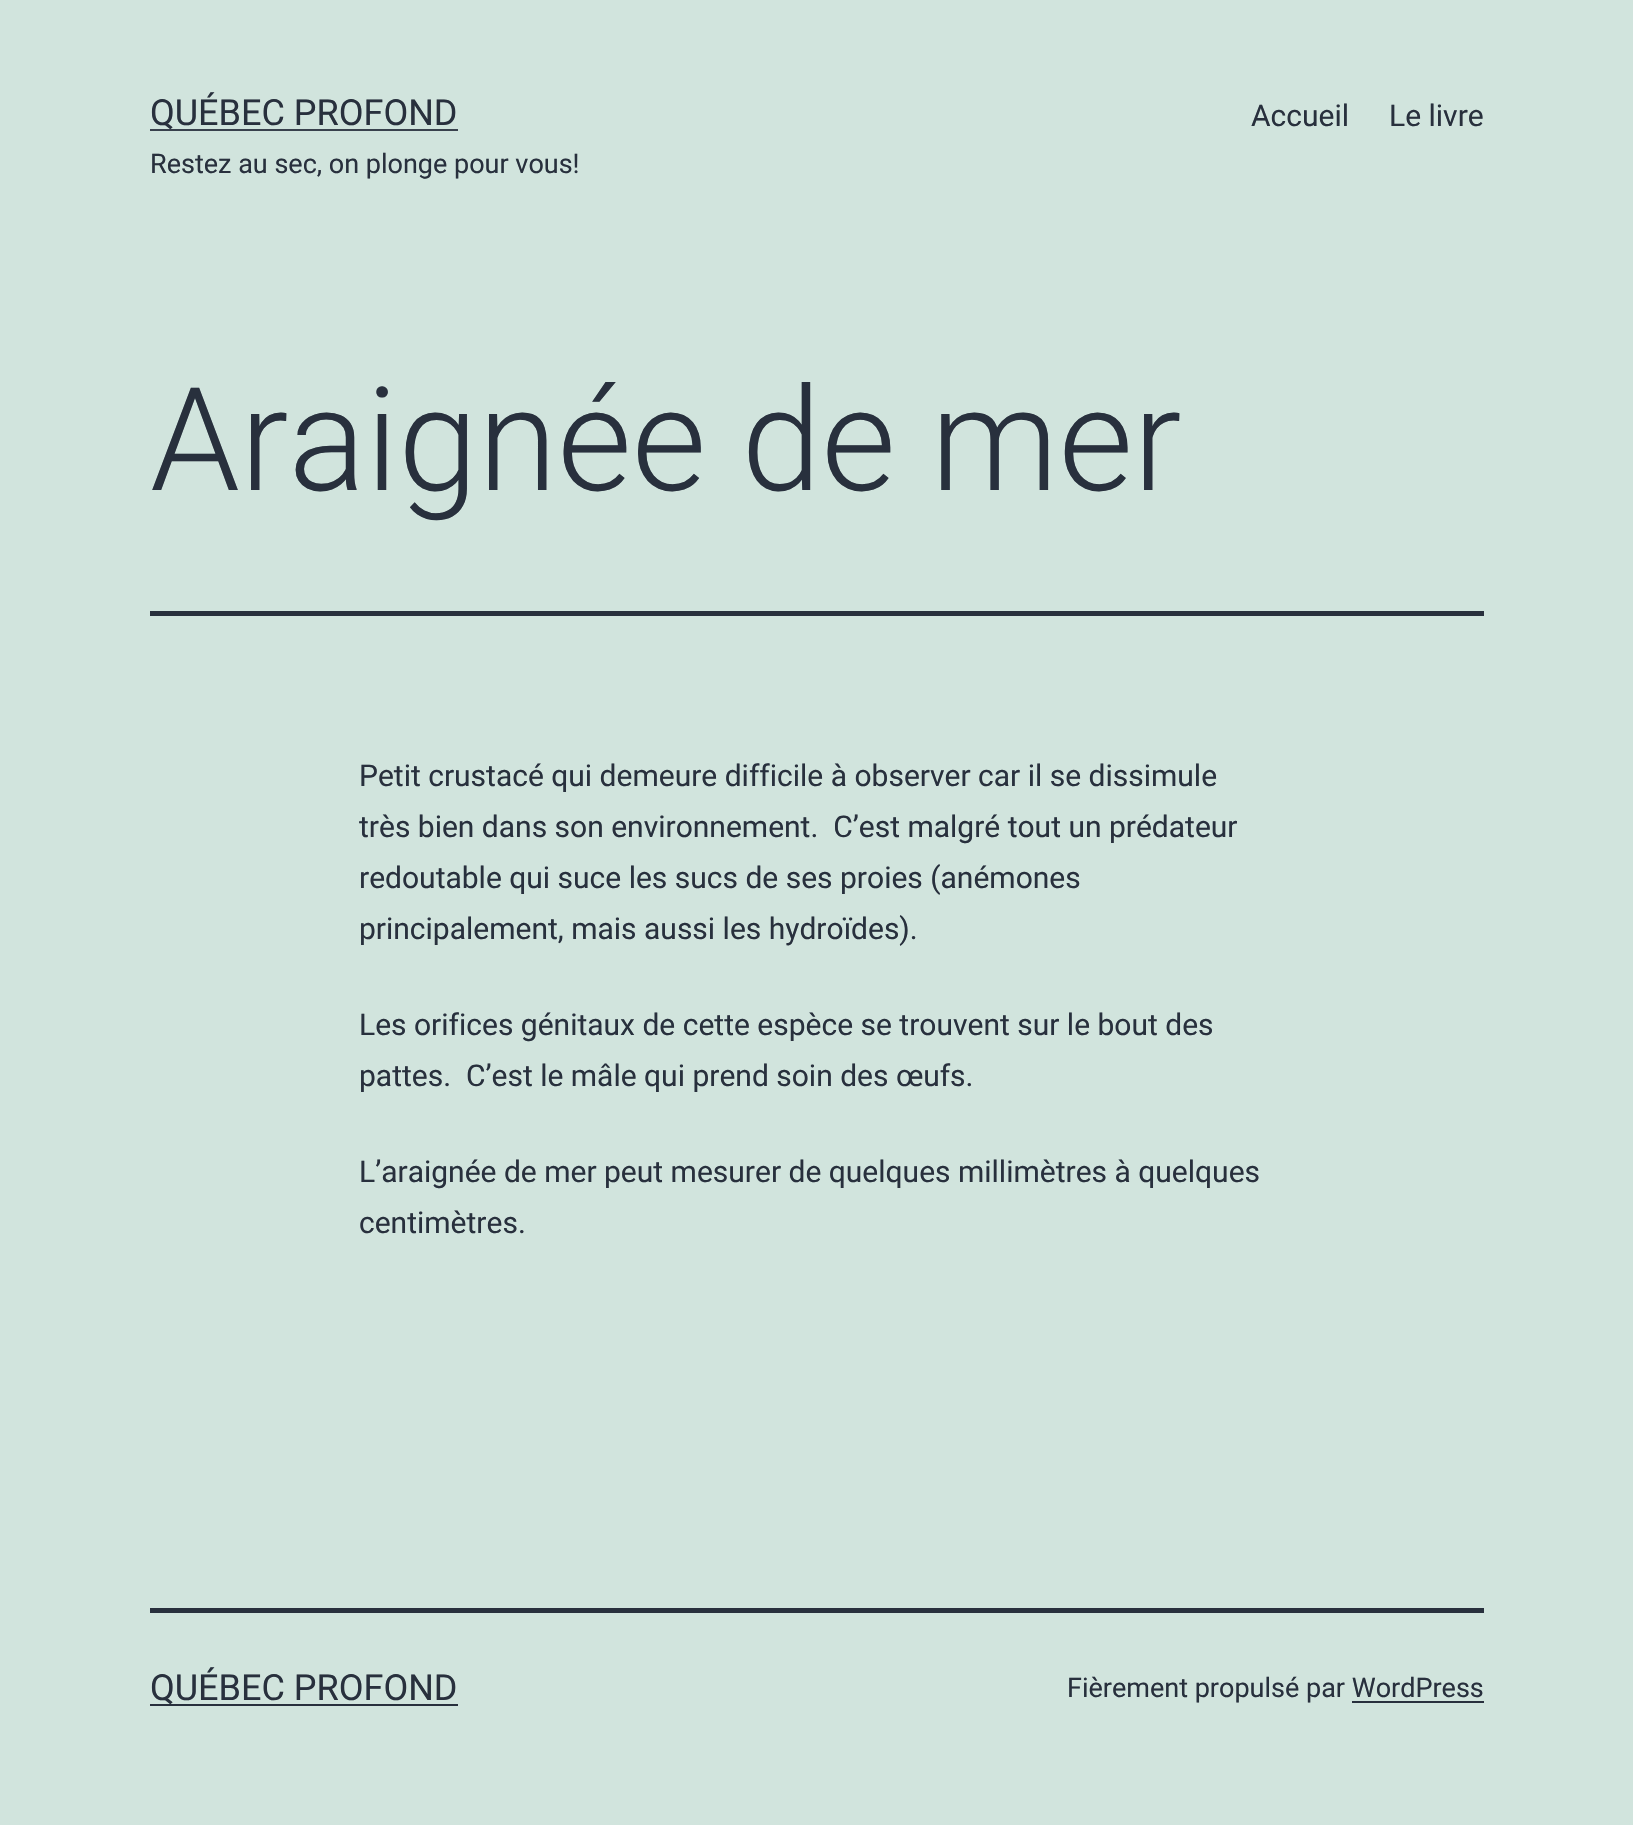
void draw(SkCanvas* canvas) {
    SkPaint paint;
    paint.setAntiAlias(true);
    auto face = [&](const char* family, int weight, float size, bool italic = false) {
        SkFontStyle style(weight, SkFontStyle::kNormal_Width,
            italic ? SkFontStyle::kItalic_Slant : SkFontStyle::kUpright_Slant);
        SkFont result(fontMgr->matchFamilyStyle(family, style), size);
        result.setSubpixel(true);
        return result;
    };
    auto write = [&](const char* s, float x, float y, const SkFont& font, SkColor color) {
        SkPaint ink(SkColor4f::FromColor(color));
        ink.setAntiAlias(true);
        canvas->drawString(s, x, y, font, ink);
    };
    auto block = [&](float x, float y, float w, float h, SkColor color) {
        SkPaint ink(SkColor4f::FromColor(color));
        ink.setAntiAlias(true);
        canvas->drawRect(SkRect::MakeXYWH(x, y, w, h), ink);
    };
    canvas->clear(SkColorSetRGB(209, 228, 221));
    block(150, 129, 308, 2, SkColorSetRGB(57, 65, 77));
    auto kFont1 = face("Roboto", 400, 36);
    write("QUÉBEC PROFOND", 150, 125, kFont1, SkColorSetRGB(40, 48, 61));
    auto kFont2 = face("Roboto", 400, 27);
    write("Restez au sec, on plonge pour vous!", 150, 173, kFont2, SkColorSetRGB(40, 48, 61));
    auto kFont3 = face("Roboto", 400, 30);
    write("Accueil", 1251, 126, kFont3, SkColorSetRGB(40, 48, 61));
    write("Le livre", 1389, 126, kFont3, SkColorSetRGB(40, 48, 61));
    block(150, 611, 1334, 5, SkColorSetRGB(40, 48, 61));
    auto kFont4 = face("Roboto", 300, 144);
    write("Araignée de mer", 150, 490, kFont4, SkColorSetRGB(40, 48, 61));
    write("Petit crustacé qui demeure difficile à observer car il se dissimule", 359, 786, kFont3, SkColorSetRGB(40, 48, 61));
    write("très bien dans son environnement.  C’est malgré tout un prédateur", 359, 837, kFont3, SkColorSetRGB(40, 48, 61));
    write("redoutable qui suce les sucs de ses proies (anémones", 359, 888, kFont3, SkColorSetRGB(40, 48, 61));
    write("principalement, mais aussi les hydroïdes).", 359, 939, kFont3, SkColorSetRGB(40, 48, 61));
    write("Les orifices génitaux de cette espèce se trouvent sur le bout des", 359, 1035, kFont3, SkColorSetRGB(40, 48, 61));
    write("pattes.  C’est le mâle qui prend soin des œufs.", 359, 1086, kFont3, SkColorSetRGB(40, 48, 61));
    write("L’araignée de mer peut mesurer de quelques millimètres à quelques", 359, 1182, kFont3, SkColorSetRGB(40, 48, 61));
    write("centimètres.", 359, 1233, kFont3, SkColorSetRGB(40, 48, 61));
    block(150, 1608, 1334, 5, SkColorSetRGB(40, 48, 61));
    block(150, 1704, 308, 2, SkColorSetRGB(40, 48, 61));
    write("QUÉBEC PROFOND", 150, 1700, kFont1, SkColorSetRGB(40, 48, 61));
    write("Fièrement propulsé par WordPress", 1067, 1697, kFont2, SkColorSetRGB(40, 48, 61));
    block(1352, 1701, 132, 2, SkColorSetRGB(40, 48, 61));
}
